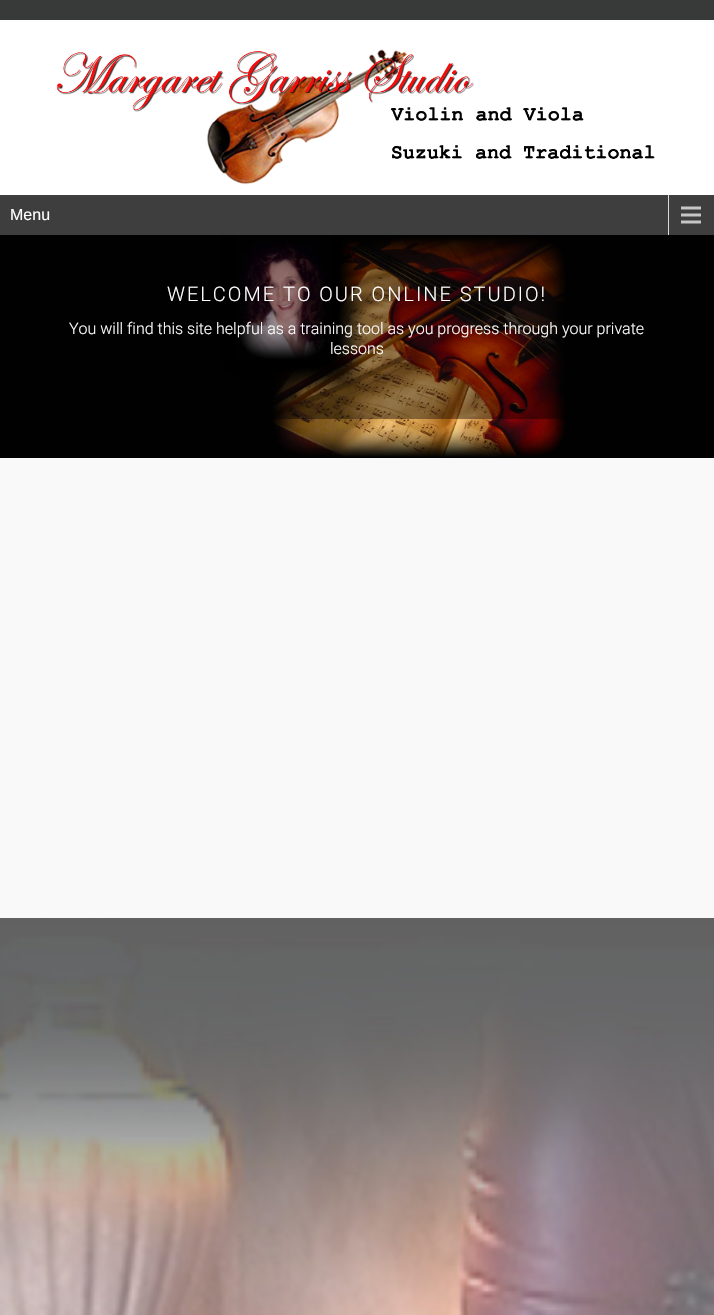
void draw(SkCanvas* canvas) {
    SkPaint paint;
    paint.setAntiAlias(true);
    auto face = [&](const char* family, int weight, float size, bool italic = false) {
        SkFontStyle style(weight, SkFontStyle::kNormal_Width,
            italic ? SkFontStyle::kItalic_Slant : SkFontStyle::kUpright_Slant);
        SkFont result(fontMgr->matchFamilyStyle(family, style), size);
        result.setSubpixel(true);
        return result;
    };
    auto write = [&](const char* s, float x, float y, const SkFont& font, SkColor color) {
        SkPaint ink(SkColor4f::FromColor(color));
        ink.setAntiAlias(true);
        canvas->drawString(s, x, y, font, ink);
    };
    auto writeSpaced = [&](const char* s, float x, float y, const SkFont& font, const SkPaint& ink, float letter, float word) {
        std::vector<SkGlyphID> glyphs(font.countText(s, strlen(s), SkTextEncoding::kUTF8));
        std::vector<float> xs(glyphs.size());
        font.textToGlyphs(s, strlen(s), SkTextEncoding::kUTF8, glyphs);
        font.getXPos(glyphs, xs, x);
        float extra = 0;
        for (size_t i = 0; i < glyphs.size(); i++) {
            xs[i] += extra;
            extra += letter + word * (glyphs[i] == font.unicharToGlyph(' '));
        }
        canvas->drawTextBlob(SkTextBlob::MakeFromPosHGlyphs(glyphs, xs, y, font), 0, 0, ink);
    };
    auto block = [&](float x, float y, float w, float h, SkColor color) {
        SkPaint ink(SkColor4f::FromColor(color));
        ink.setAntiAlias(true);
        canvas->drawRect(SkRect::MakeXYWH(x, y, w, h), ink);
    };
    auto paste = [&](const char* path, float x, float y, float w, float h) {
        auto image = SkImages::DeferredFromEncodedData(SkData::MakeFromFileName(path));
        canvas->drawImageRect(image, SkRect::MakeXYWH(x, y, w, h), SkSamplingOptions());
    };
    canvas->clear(SK_ColorWHITE);
    block(0, 0, 714, 20, SkColorSetRGB(56, 57, 57));
    paste("pic1.png", 56, 49, 599, 136);
    block(0, 195, 714, 40, SkColorSetRGB(62, 62, 62));
    paste("pic2.png", 668, 195, 33, 40);
    auto kFont1 = face("Arimo", 400, 16);
    write("Menu", 10, 220, kFont1, SK_ColorWHITE);
    paste("pic3.png", 0, 235, 714, 223);
    block(239, 238, 327, 181, SkColorSetARGB(102, 0, 0, 0));
    auto kFont2 = face("Roboto", 300, 20);
    paint.setColor(SK_ColorWHITE);
    writeSpaced("WELCOME TO OUR ONLINE STUDIO!", 167, 301, kFont2, paint, 2, 0);
    auto kFont3 = face("Roboto", 300, 16);
    write("You will find this site helpful as a training tool as you progress through your private", 69, 334, kFont3, SK_ColorWHITE);
    write("lessons", 330, 354, kFont3, SK_ColorWHITE);
    block(0, 458, 714, 460, SkColorSetRGB(249, 249, 249));
    paste("pic4.png", 0, 918, 714, 397);
}
